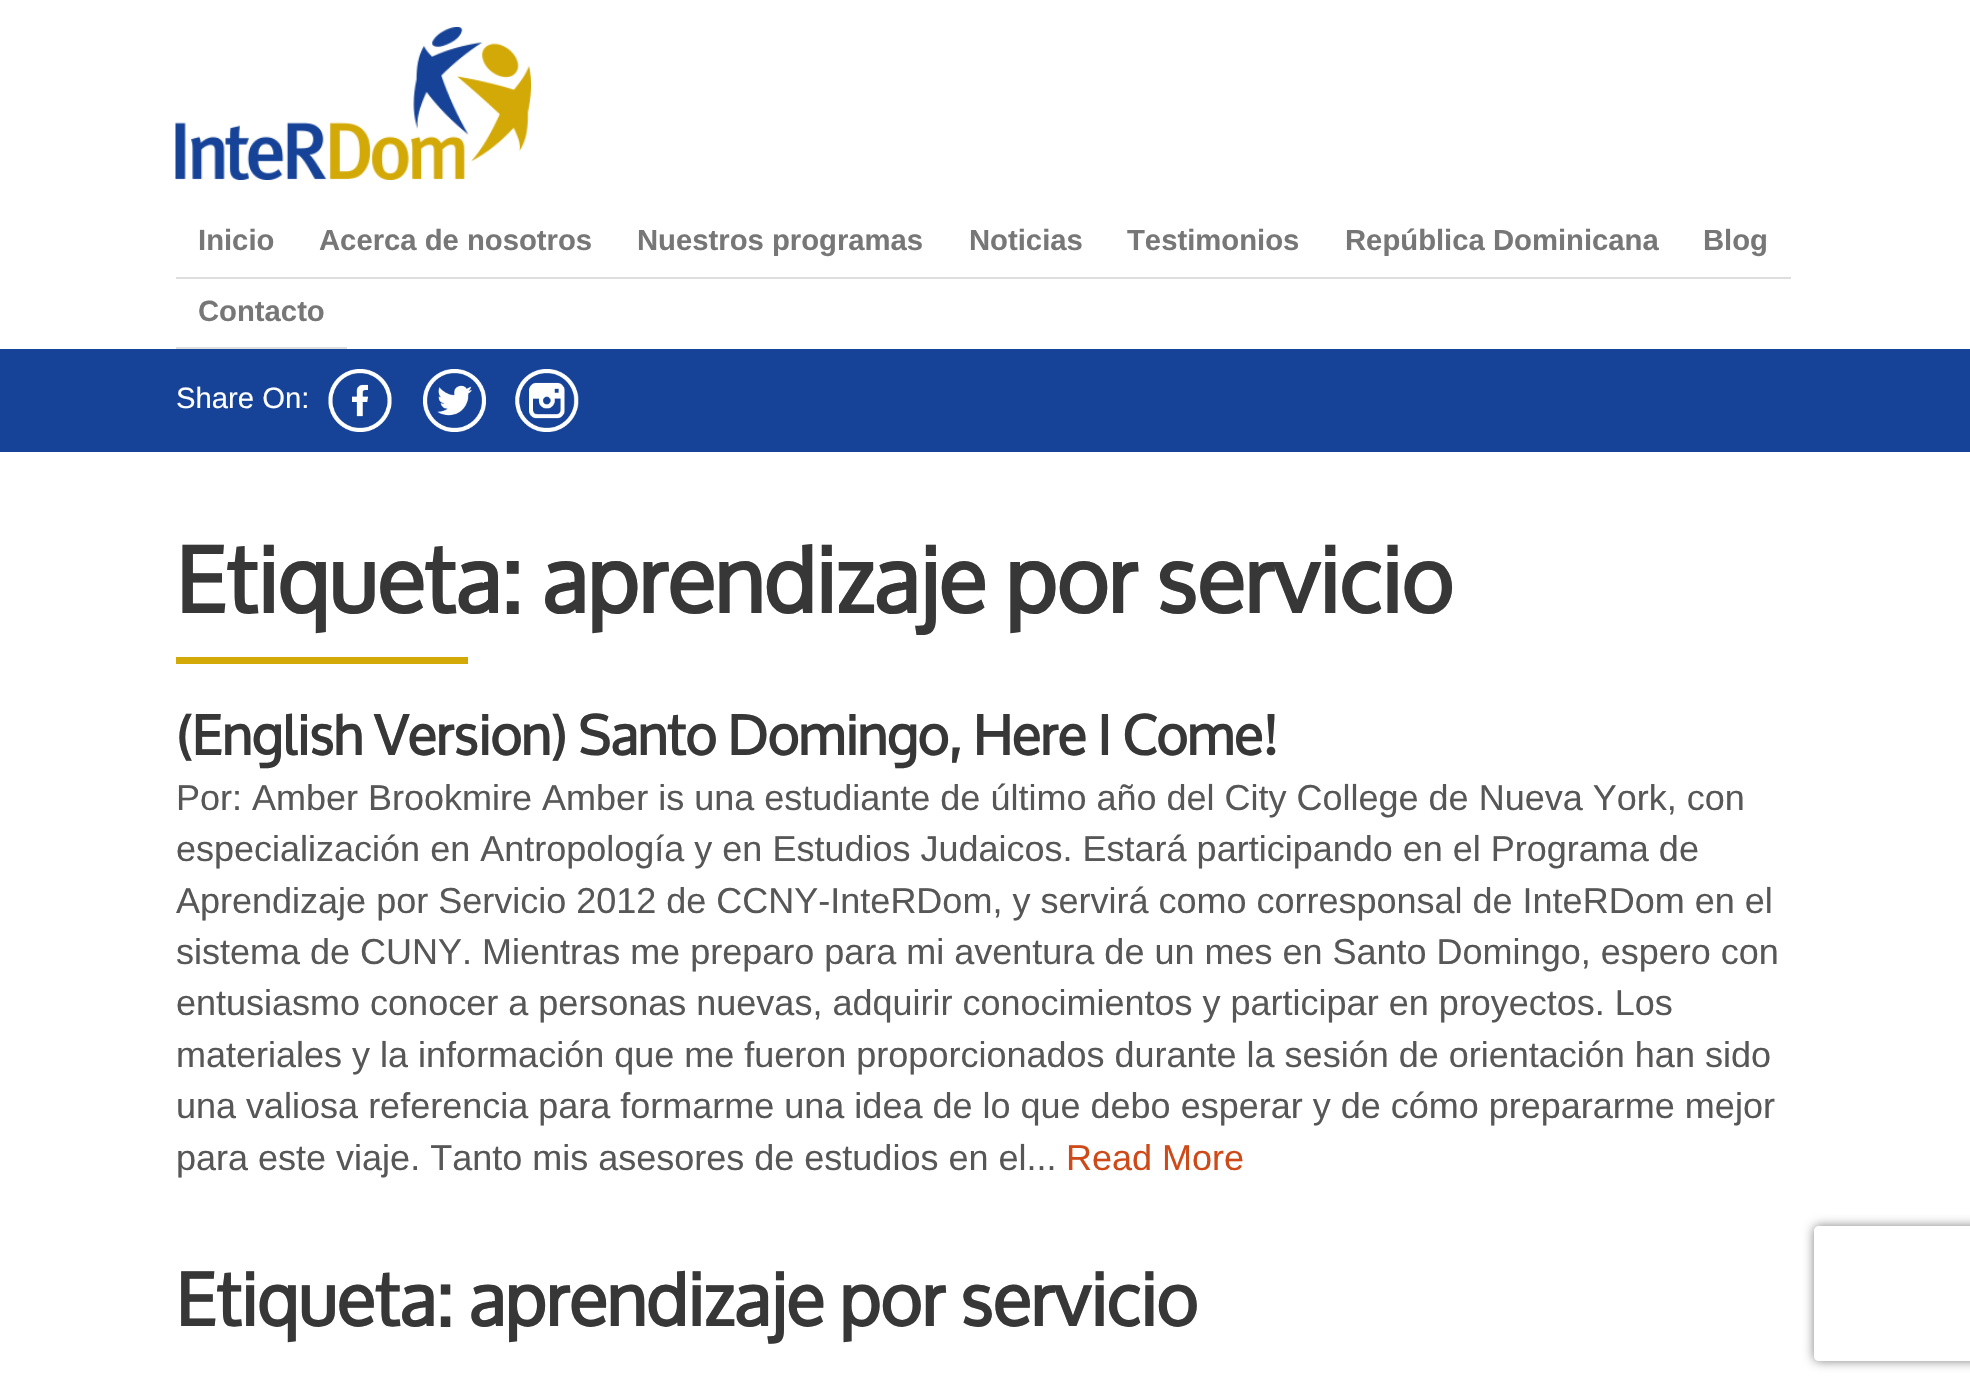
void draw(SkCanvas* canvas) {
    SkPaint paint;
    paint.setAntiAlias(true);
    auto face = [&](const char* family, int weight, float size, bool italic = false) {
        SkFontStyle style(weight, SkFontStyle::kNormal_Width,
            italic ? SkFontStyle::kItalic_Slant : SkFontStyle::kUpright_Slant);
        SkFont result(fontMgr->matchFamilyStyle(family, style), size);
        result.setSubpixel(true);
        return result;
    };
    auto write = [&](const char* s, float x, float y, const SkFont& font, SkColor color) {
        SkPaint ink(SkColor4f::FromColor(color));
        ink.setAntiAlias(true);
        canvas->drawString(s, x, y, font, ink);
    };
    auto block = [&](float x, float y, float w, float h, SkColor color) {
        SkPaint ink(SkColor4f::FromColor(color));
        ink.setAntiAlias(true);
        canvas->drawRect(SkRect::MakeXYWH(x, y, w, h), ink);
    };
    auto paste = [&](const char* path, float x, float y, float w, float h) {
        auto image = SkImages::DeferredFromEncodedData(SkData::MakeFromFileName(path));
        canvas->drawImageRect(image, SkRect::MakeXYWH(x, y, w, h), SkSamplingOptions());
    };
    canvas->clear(SK_ColorWHITE);
    paste("pic1.png", 175, 27, 356, 153);
    block(176, 277, 1615, 2, SkColorSetRGB(222, 222, 222));
    auto kFont1 = face("Liberation Sans", 700, 29.25f);
    write("Inicio", 198, 250, kFont1, SkColorSetRGB(119, 119, 119));
    write("Acerca de nosotros", 319, 250, kFont1, SkColorSetRGB(119, 119, 119));
    write("Nuestros programas", 637, 250, kFont1, SkColorSetRGB(119, 119, 119));
    write("Noticias", 969, 250, kFont1, SkColorSetRGB(119, 119, 119));
    write("Testimonios", 1127, 250, kFont1, SkColorSetRGB(119, 119, 119));
    write("República Dominicana", 1345, 250, kFont1, SkColorSetRGB(119, 119, 119));
    write("Blog", 1703, 250, kFont1, SkColorSetRGB(119, 119, 119));
    block(176, 347, 171, 2, SkColorSetRGB(222, 222, 222));
    write("Contacto", 198, 321, kFont1, SkColorSetRGB(119, 119, 119));
    block(0, 349, 1970, 103, SkColorSetRGB(22, 67, 151));
    auto kFont2 = face("Liberation Sans", 400, 29.25f);
    write("Share On:", 176, 408, kFont2, SK_ColorWHITE);
    paste("pic2.png", 328, 369, 64, 63);
    paste("pic3.png", 423, 369, 63, 63);
    paste("pic4.png", 515, 369, 64, 63);
    auto kFont3 = face("Oxygen", 700, 90);
    write("Etiqueta: aprendizaje por servicio", 176, 613, kFont3, SkColorSetRGB(55, 55, 55));
    block(176, 657, 292, 7, SkColorSetRGB(211, 169, 7));
    auto kFont4 = face("Oxygen", 700, 54);
    write("(English Version) Santo Domingo, Here I Come!", 176, 755, kFont4, SkColorSetRGB(55, 55, 55));
    auto kFont5 = face("Liberation Sans", 400, 36);
    write("Por: Amber Brookmire Amber is una estudiante de último año del City College de Nueva York, con", 176, 810, kFont5, SkColorSetRGB(87, 87, 87));
    write("especialización en Antropología y en Estudios Judaicos. Estará participando en el Programa de", 176, 861, kFont5, SkColorSetRGB(87, 87, 87));
    write("Aprendizaje por Servicio 2012 de CCNY-InteRDom, y servirá como corresponsal de InteRDom en el", 176, 913, kFont5, SkColorSetRGB(87, 87, 87));
    write("sistema de CUNY. Mientras me preparo para mi aventura de un mes en Santo Domingo, espero con", 176, 964, kFont5, SkColorSetRGB(87, 87, 87));
    write("entusiasmo conocer a personas nuevas, adquirir conocimientos y participar en proyectos. Los", 176, 1015, kFont5, SkColorSetRGB(87, 87, 87));
    write("materiales y la información que me fueron proporcionados durante la sesión de orientación han sido", 176, 1067, kFont5, SkColorSetRGB(87, 87, 87));
    write("una valiosa referencia para formarme una idea de lo que debo esperar y de cómo prepararme mejor", 176, 1118, kFont5, SkColorSetRGB(87, 87, 87));
    write("para este viaje. Tanto mis asesores de estudios en el...", 176, 1170, kFont5, SkColorSetRGB(87, 87, 87));
    write("Read More", 1066, 1170, kFont5, SkColorSetRGB(206, 74, 24));
    auto kFont6 = face("Oxygen", 700, 72);
    write("Etiqueta: aprendizaje por servicio", 176, 1326, kFont6, SkColorSetRGB(55, 55, 55));
    canvas->save();
    canvas->clipPath(SkPathBuilder(SkPathFillType::kEvenOdd).moveTo(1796, 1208).lineTo(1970, 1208).lineTo(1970, 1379).lineTo(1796, 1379).close().moveTo(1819, 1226).lineTo(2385, 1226).cubicTo(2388, 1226, 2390, 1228, 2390, 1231).lineTo(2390, 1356).cubicTo(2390, 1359, 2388, 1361, 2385, 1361).lineTo(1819, 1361).cubicTo(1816, 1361, 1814, 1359, 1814, 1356).lineTo(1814, 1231).cubicTo(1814, 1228, 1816, 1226, 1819, 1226).close().detach(), true);
    paint.setColor(SkColorSetRGB(128, 128, 128));
    paint.setMaskFilter(SkMaskFilter::MakeBlur(kNormal_SkBlurStyle, 5.5f));
    canvas->drawRoundRect(SkRect::MakeXYWH(1814, 1226, 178, 135), 5, 5, paint);
    paint.setMaskFilter(nullptr);
    canvas->restore();
}
